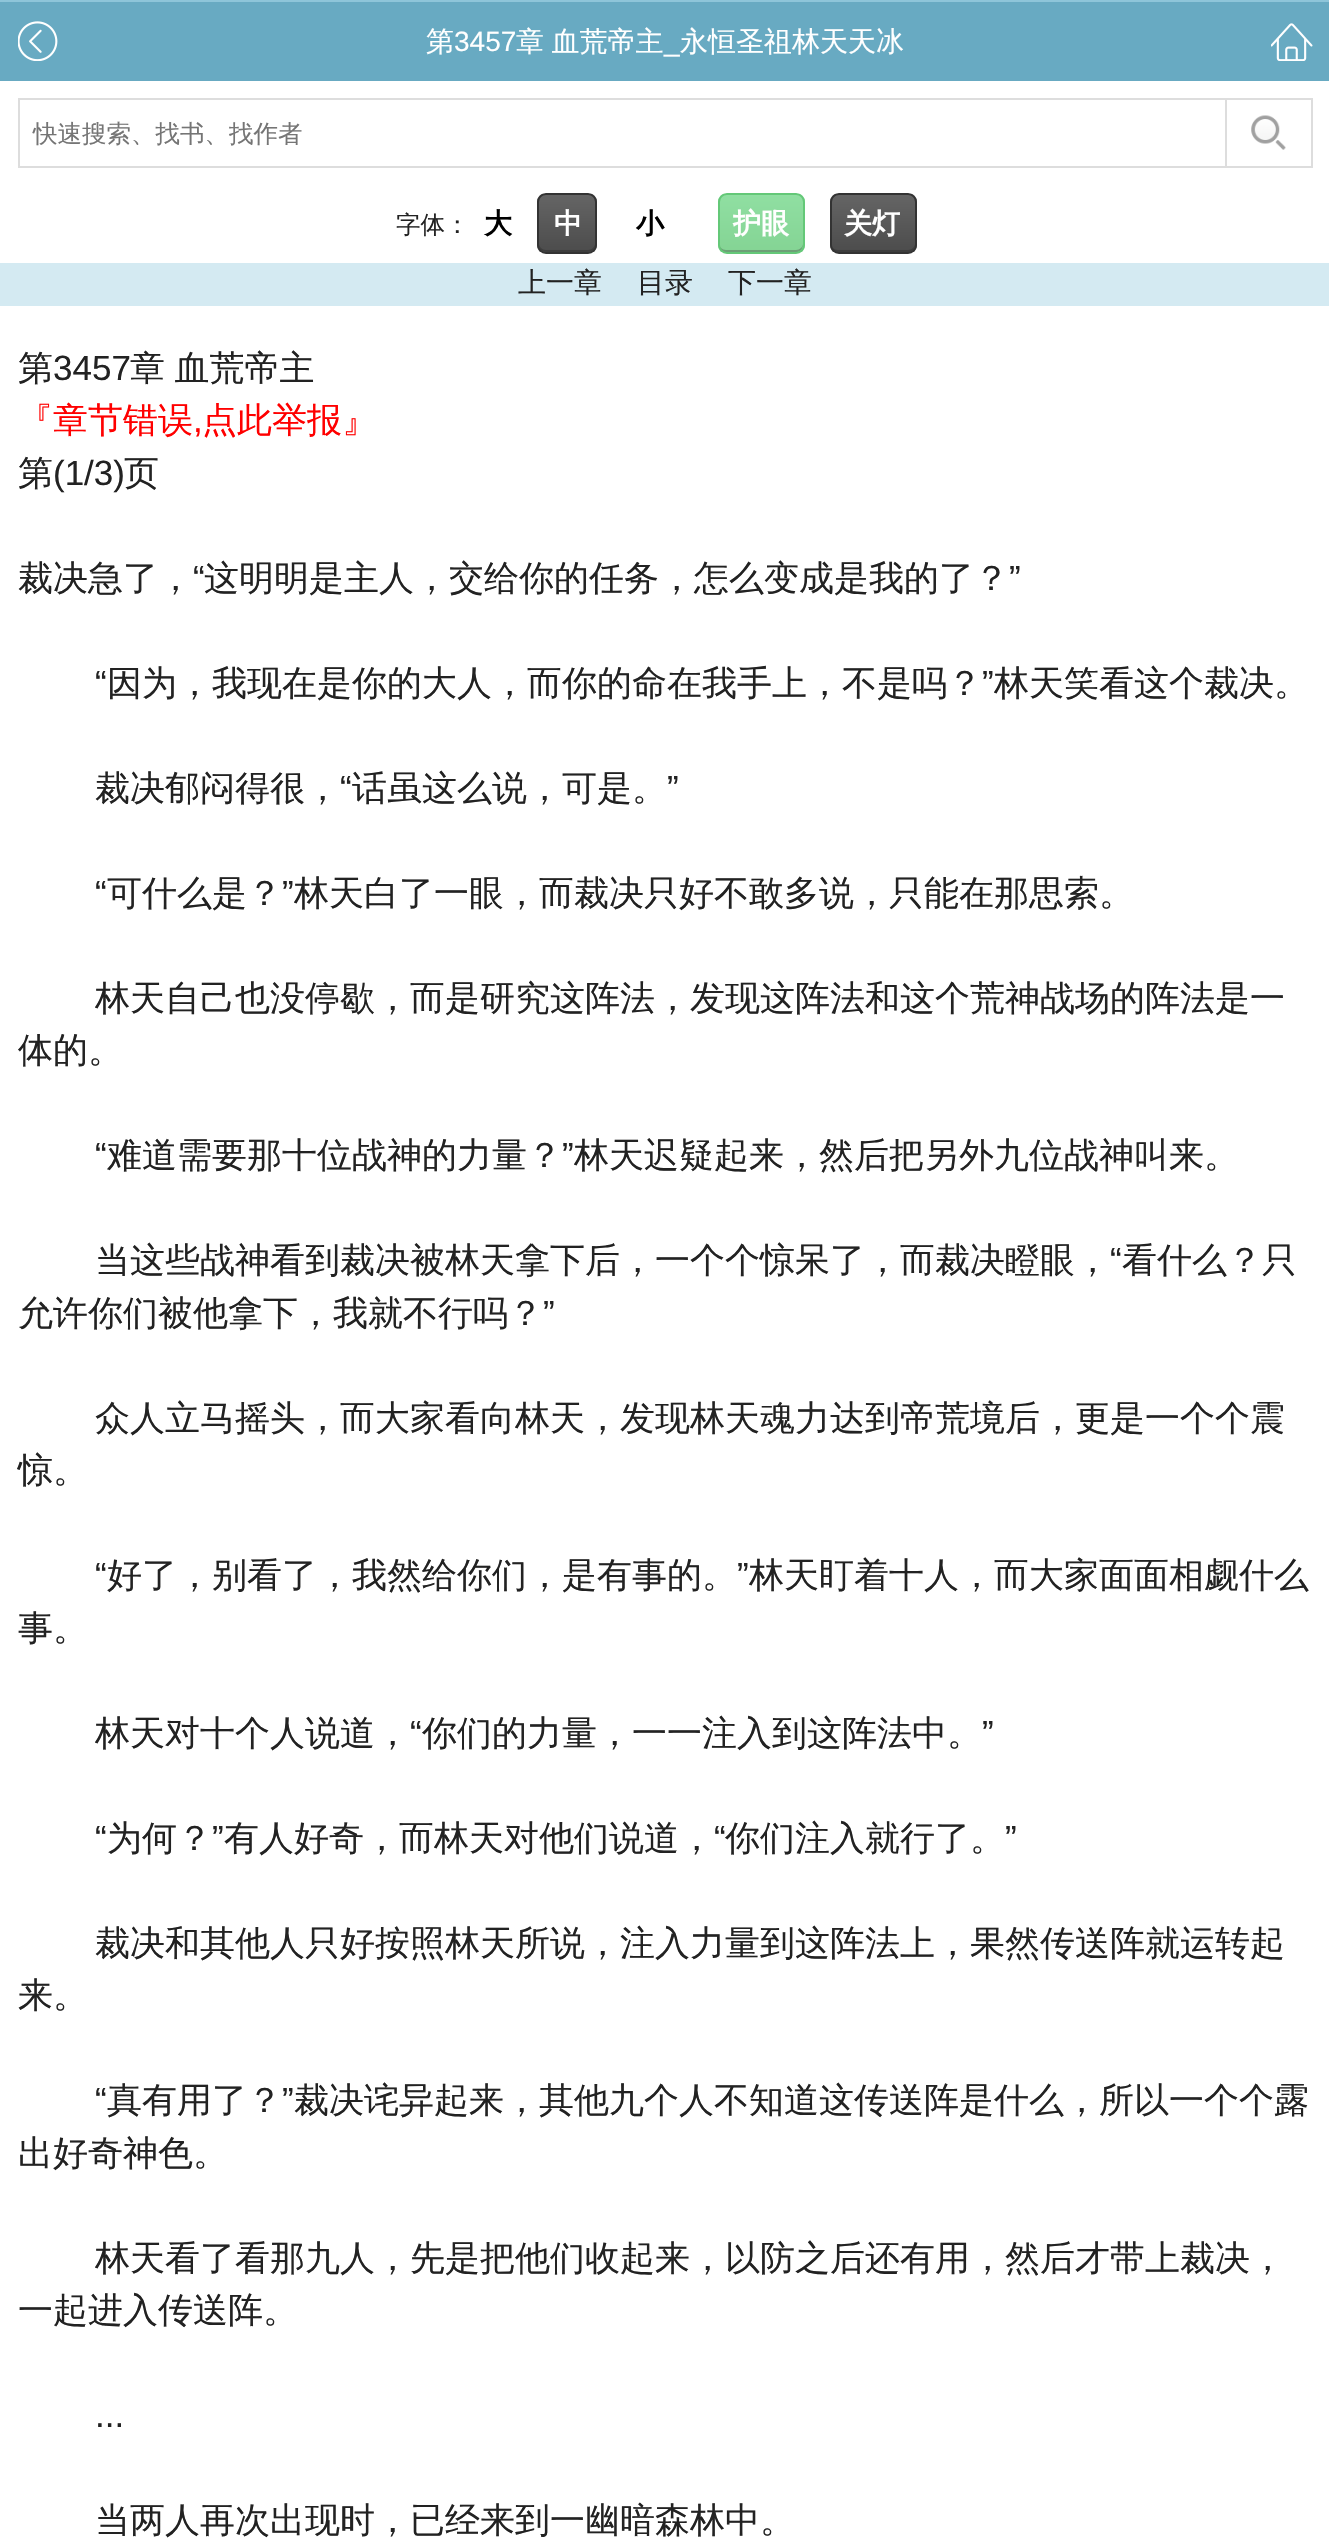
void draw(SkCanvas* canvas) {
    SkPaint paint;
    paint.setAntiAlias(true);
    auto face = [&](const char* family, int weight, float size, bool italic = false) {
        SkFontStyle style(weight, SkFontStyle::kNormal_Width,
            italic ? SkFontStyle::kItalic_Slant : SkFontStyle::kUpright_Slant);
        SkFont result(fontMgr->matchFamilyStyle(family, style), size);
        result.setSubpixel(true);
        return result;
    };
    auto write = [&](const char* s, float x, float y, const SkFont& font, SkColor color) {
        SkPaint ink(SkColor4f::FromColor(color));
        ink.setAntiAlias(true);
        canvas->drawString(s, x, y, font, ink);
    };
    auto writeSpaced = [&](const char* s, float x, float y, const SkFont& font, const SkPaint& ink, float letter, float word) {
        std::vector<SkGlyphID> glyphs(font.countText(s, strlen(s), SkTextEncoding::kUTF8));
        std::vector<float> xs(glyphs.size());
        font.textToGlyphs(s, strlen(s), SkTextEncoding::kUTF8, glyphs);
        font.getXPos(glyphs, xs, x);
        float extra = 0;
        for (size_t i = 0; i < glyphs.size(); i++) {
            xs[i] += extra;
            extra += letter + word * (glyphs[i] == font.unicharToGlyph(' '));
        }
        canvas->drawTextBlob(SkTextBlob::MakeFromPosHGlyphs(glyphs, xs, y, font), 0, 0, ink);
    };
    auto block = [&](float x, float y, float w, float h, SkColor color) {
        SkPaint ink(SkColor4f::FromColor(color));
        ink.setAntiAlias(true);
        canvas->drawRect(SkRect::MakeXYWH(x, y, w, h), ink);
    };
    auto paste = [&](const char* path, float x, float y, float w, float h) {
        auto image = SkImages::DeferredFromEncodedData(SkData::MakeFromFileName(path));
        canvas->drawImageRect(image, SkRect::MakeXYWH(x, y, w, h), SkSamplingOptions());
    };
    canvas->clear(SK_ColorWHITE);
    block(0, 2, 1329, 79, SkColorSetRGB(104, 170, 194));
    block(0, 0, 1329, 2, SkColorSetRGB(142, 197, 217));
    paste("pic1.png", 18, 21, 40, 40);
    auto kFont1 = face("WenQuanYi Zen Hei", 500, 28);
    write("第", 426, 51, kFont1, SK_ColorWHITE);
    auto kFont2 = face("Liberation Sans", 400, 28);
    write("3457", 454, 51, kFont2, SK_ColorWHITE);
    paint.setColor(SK_ColorWHITE);
    writeSpaced("章 血荒帝主", 516, 51, kFont1, paint, 0, -1);
    write("永恒圣祖林天天冰", 680, 51, kFont1, SK_ColorWHITE);
    write("_", 664, 51, kFont2, SK_ColorWHITE);
    paste("pic2.png", 1271, 23, 42, 38);
    paint.setColor(SkColorSetRGB(221, 221, 221));
    canvas->drawPath(SkPathBuilder().moveTo(18, 98).lineTo(1312, 98).lineTo(1225, 100).lineTo(19, 100).close().detach(), paint);
    paint.setColor(SK_ColorWHITE);
    canvas->drawPath(SkPathBuilder().moveTo(1312, 98).lineTo(1312, 168).lineTo(1225, 166).lineTo(1225, 100).close().detach(), paint);
    paint.setColor(SkColorSetRGB(221, 221, 221));
    canvas->drawPath(SkPathBuilder().moveTo(1312, 168).lineTo(18, 168).lineTo(19, 166).lineTo(1225, 166).close().detach(), paint);
    block(18, 98, 2, 70, SkColorSetRGB(221, 221, 221));
    auto kFont3 = face("WenQuanYi Zen Hei", 500, 24.5f);
    write("快速搜索、找书、找作者", 33, 142, kFont3, SkColorSetRGB(117, 117, 117));
    paste("pic3.png", 1251, 115, 35, 35);
    paint.setStyle(SkPaint::kStroke_Style);
    paint.setStrokeWidth(2);
    canvas->drawRect(SkRect::MakeXYWH(1226, 99, 86, 68), paint);
    write("字体：", 396, 233, kFont3, SkColorSetRGB(34, 34, 34));
    auto kFont4 = face("WenQuanYi Zen Hei", 700, 28);
    write("大", 484, 233, kFont4, SK_ColorBLACK);
    canvas->save();
    canvas->clipPath(SkPathBuilder().moveTo(546, 193).lineTo(588, 193).cubicTo(593, 193, 597, 197, 597, 202).lineTo(597, 245).cubicTo(597, 250, 593, 254, 588, 254).lineTo(546, 254).cubicTo(541, 254, 537, 250, 537, 245).lineTo(537, 202).cubicTo(537, 197, 541, 193, 546, 193).close().detach(), true);
    paint.setStyle(SkPaint::kFill_Style);
    {
        const SkColor colors[] = {SkColorSetRGB(101, 101, 101), SkColorSetRGB(76, 76, 76)};
        const float stops[] = {0, 1};
        const SkPoint ends[] = {{567, 194}, {567, 252}};
        paint.setShader(SkGradientShader::MakeLinear(ends, colors, stops, 2, SkTileMode::kClamp));
        paint.setAlpha(255);
    }
    canvas->drawRect(SkRect::MakeXYWH(537, 194, 60, 58), paint);
    canvas->restore();
    paint.setShader(nullptr);
    paint.setColor(SkColorSetRGB(61, 61, 61));
    canvas->drawPath(SkPathBuilder().moveTo(539, 243).cubicTo(539, 253, 545, 252, 553, 252).lineTo(581, 252).cubicTo(589, 252, 595, 253, 595, 243).cubicTo(595, 247, 592, 250, 588, 250).lineTo(546, 250).cubicTo(542, 250, 539, 247, 539, 243).close().detach(), paint);
    paint.setStyle(SkPaint::kStroke_Style);
    paint.setColor(SkColorSetRGB(51, 51, 51));
    canvas->drawRoundRect(SkRect::MakeXYWH(538, 194, 58, 59), 8, 8, paint);
    write("中", 554, 233, kFont4, SK_ColorWHITE);
    write("小", 636, 233, kFont4, SK_ColorBLACK);
    canvas->save();
    canvas->clipPath(SkPathBuilder().moveTo(727, 193).lineTo(796, 193).cubicTo(801, 193, 805, 197, 805, 202).lineTo(805, 245).cubicTo(805, 250, 801, 254, 796, 254).lineTo(727, 254).cubicTo(722, 254, 718, 250, 718, 245).lineTo(718, 202).cubicTo(718, 197, 722, 193, 727, 193).close().detach(), true);
    paint.setStyle(SkPaint::kFill_Style);
    {
        const SkColor colors[] = {SkColorSetRGB(144, 223, 162), SkColorSetRGB(132, 212, 148)};
        const float stops[] = {0, 1};
        const SkPoint ends[] = {{761, 194}, {761, 252}};
        paint.setShader(SkGradientShader::MakeLinear(ends, colors, stops, 2, SkTileMode::kClamp));
        paint.setAlpha(255);
    }
    canvas->drawRect(SkRect::MakeXYWH(718, 194, 87, 58), paint);
    canvas->restore();
    paint.setShader(nullptr);
    paint.setColor(SkColorSetRGB(108, 159, 118));
    canvas->drawPath(SkPathBuilder().moveTo(719, 243).cubicTo(719, 255, 728, 252, 738, 252).lineTo(784, 252).cubicTo(794, 252, 803, 255, 803, 243).cubicTo(803, 247, 800, 250, 796, 250).lineTo(726, 250).cubicTo(722, 250, 719, 247, 719, 243).close().detach(), paint);
    paint.setStyle(SkPaint::kStroke_Style);
    paint.setColor(SkColorSetRGB(100, 200, 120));
    canvas->drawRoundRect(SkRect::MakeXYWH(719, 194, 85, 59), 8, 8, paint);
    write("护眼", 733, 233, kFont4, SK_ColorWHITE);
    canvas->save();
    canvas->clipPath(SkPathBuilder().moveTo(839, 193).lineTo(908, 193).cubicTo(913, 193, 917, 197, 917, 202).lineTo(917, 245).cubicTo(917, 250, 913, 254, 908, 254).lineTo(839, 254).cubicTo(834, 254, 830, 250, 830, 245).lineTo(830, 202).cubicTo(830, 197, 834, 193, 839, 193).close().detach(), true);
    paint.setStyle(SkPaint::kFill_Style);
    {
        const SkColor colors[] = {SkColorSetRGB(101, 101, 101), SkColorSetRGB(76, 76, 76)};
        const float stops[] = {0, 1};
        const SkPoint ends[] = {{873, 194}, {873, 252}};
        paint.setShader(SkGradientShader::MakeLinear(ends, colors, stops, 2, SkTileMode::kClamp));
        paint.setAlpha(255);
    }
    canvas->drawRect(SkRect::MakeXYWH(830, 194, 87, 58), paint);
    canvas->restore();
    paint.setShader(nullptr);
    paint.setColor(SkColorSetRGB(61, 61, 61));
    canvas->drawPath(SkPathBuilder().moveTo(831, 243).cubicTo(831, 255, 840, 252, 850, 252).lineTo(896, 252).cubicTo(906, 252, 915, 255, 915, 243).cubicTo(915, 247, 912, 250, 908, 250).lineTo(838, 250).cubicTo(834, 250, 831, 247, 831, 243).close().detach(), paint);
    paint.setStyle(SkPaint::kStroke_Style);
    paint.setColor(SkColorSetRGB(51, 51, 51));
    canvas->drawRoundRect(SkRect::MakeXYWH(831, 194, 85, 59), 8, 8, paint);
    write("关灯", 844, 233, kFont4, SK_ColorWHITE);
    block(0, 263, 1329, 43, SkColorSetRGB(212, 234, 242));
    write("上一章", 518, 292, kFont1, SkColorSetRGB(34, 34, 34));
    write("目录", 637, 292, kFont1, SkColorSetRGB(34, 34, 34));
    write("下一章", 728, 292, kFont1, SkColorSetRGB(34, 34, 34));
    auto kFont5 = face("WenQuanYi Zen Hei", 500, 35);
    write("第", 18, 380, kFont5, SkColorSetRGB(34, 34, 34));
    auto kFont6 = face("Liberation Sans", 400, 35);
    write("3457", 53, 380, kFont6, SkColorSetRGB(34, 34, 34));
    paint.setStyle(SkPaint::kFill_Style);
    paint.setColor(SkColorSetRGB(34, 34, 34));
    writeSpaced("章 血荒帝主", 130, 380, kFont5, paint, 0, -1);
    write("『章节错误", 18, 432, kFont5, SkColorSetRGB(255, 0, 0));
    write(",", 193, 432, kFont6, SkColorSetRGB(255, 0, 0));
    write("点此举报』", 202, 432, kFont5, SkColorSetRGB(255, 0, 0));
    write("第", 18, 485, kFont5, SkColorSetRGB(34, 34, 34));
    write("(1/3)", 53, 485, kFont6, SkColorSetRGB(34, 34, 34));
    write("页", 124, 485, kFont5, SkColorSetRGB(34, 34, 34));
    write("裁决急了，", 18, 590, kFont5, SkColorSetRGB(34, 34, 34));
    write("“", 193, 590, kFont6, SkColorSetRGB(34, 34, 34));
    write("这明明是主人，交给你的任务，怎么变成是我的了？", 204, 590, kFont5, SkColorSetRGB(34, 34, 34));
    write("”", 1009, 590, kFont6, SkColorSetRGB(34, 34, 34));
    write("“", 95, 695, kFont6, SkColorSetRGB(34, 34, 34));
    write("因为，我现在是你的大人，而你的命在我手上，不是吗？", 107, 695, kFont5, SkColorSetRGB(34, 34, 34));
    write("”", 982, 695, kFont6, SkColorSetRGB(34, 34, 34));
    write("林天笑看这个裁决。", 994, 695, kFont5, SkColorSetRGB(34, 34, 34));
    write("裁决郁闷得很，", 95, 800, kFont5, SkColorSetRGB(34, 34, 34));
    write("“", 340, 800, kFont6, SkColorSetRGB(34, 34, 34));
    write("话虽这么说，可是。", 352, 800, kFont5, SkColorSetRGB(34, 34, 34));
    write("”", 667, 800, kFont6, SkColorSetRGB(34, 34, 34));
    write("“", 95, 905, kFont6, SkColorSetRGB(34, 34, 34));
    write("可什么是？", 107, 905, kFont5, SkColorSetRGB(34, 34, 34));
    write("”", 282, 905, kFont6, SkColorSetRGB(34, 34, 34));
    write("林天白了一眼，而裁决只好不敢多说，只能在那思索。", 294, 905, kFont5, SkColorSetRGB(34, 34, 34));
    write("林天自己也没停歇，而是研究这阵法，发现这阵法和这个荒神战场的阵法是一", 95, 1010, kFont5, SkColorSetRGB(34, 34, 34));
    write("体的。", 18, 1062, kFont5, SkColorSetRGB(34, 34, 34));
    write("“", 95, 1167, kFont6, SkColorSetRGB(34, 34, 34));
    write("难道需要那十位战神的力量？", 107, 1167, kFont5, SkColorSetRGB(34, 34, 34));
    write("”", 562, 1167, kFont6, SkColorSetRGB(34, 34, 34));
    write("林天迟疑起来，然后把另外九位战神叫来。", 574, 1167, kFont5, SkColorSetRGB(34, 34, 34));
    write("当这些战神看到裁决被林天拿下后，一个个惊呆了，而裁决瞪眼，", 95, 1272, kFont5, SkColorSetRGB(34, 34, 34));
    write("“", 1110, 1272, kFont6, SkColorSetRGB(34, 34, 34));
    write("看什么？只", 1122, 1272, kFont5, SkColorSetRGB(34, 34, 34));
    write("允许你们被他拿下，我就不行吗？", 18, 1325, kFont5, SkColorSetRGB(34, 34, 34));
    write("”", 543, 1325, kFont6, SkColorSetRGB(34, 34, 34));
    write("众人立马摇头，而大家看向林天，发现林天魂力达到帝荒境后，更是一个个震", 95, 1430, kFont5, SkColorSetRGB(34, 34, 34));
    write("惊。", 18, 1482, kFont5, SkColorSetRGB(34, 34, 34));
    write("“", 95, 1587, kFont6, SkColorSetRGB(34, 34, 34));
    write("好了，别看了，我然给你们，是有事的。", 107, 1587, kFont5, SkColorSetRGB(34, 34, 34));
    write("”", 737, 1587, kFont6, SkColorSetRGB(34, 34, 34));
    write("林天盯着十人，而大家面面相觑什么", 749, 1587, kFont5, SkColorSetRGB(34, 34, 34));
    write("事。", 18, 1640, kFont5, SkColorSetRGB(34, 34, 34));
    write("林天对十个人说道，", 95, 1745, kFont5, SkColorSetRGB(34, 34, 34));
    write("“", 410, 1745, kFont6, SkColorSetRGB(34, 34, 34));
    write("你们的力量，一一注入到这阵法中。", 422, 1745, kFont5, SkColorSetRGB(34, 34, 34));
    write("”", 982, 1745, kFont6, SkColorSetRGB(34, 34, 34));
    write("“", 95, 1850, kFont6, SkColorSetRGB(34, 34, 34));
    write("为何？", 107, 1850, kFont5, SkColorSetRGB(34, 34, 34));
    write("”", 212, 1850, kFont6, SkColorSetRGB(34, 34, 34));
    write("有人好奇，而林天对他们说道，", 224, 1850, kFont5, SkColorSetRGB(34, 34, 34));
    write("“", 714, 1850, kFont6, SkColorSetRGB(34, 34, 34));
    write("你们注入就行了。", 725, 1850, kFont5, SkColorSetRGB(34, 34, 34));
    write("”", 1005, 1850, kFont6, SkColorSetRGB(34, 34, 34));
    write("裁决和其他人只好按照林天所说，注入力量到这阵法上，果然传送阵就运转起", 95, 1955, kFont5, SkColorSetRGB(34, 34, 34));
    write("来。", 18, 2007, kFont5, SkColorSetRGB(34, 34, 34));
    write("“", 95, 2112, kFont6, SkColorSetRGB(34, 34, 34));
    write("真有用了？", 107, 2112, kFont5, SkColorSetRGB(34, 34, 34));
    write("”", 282, 2112, kFont6, SkColorSetRGB(34, 34, 34));
    write("裁决诧异起来，其他九个人不知道这传送阵是什么，所以一个个露", 294, 2112, kFont5, SkColorSetRGB(34, 34, 34));
    write("出好奇神色。", 18, 2165, kFont5, SkColorSetRGB(34, 34, 34));
    write("林天看了看那九人，先是把他们收起来，以防之后还有用，然后才带上裁决，", 95, 2270, kFont5, SkColorSetRGB(34, 34, 34));
    write("一起进入传送阵。", 18, 2322, kFont5, SkColorSetRGB(34, 34, 34));
    write("...", 95, 2427, kFont6, SkColorSetRGB(34, 34, 34));
    write("当两人再次出现时，已经来到一幽暗森林中。", 95, 2532, kFont5, SkColorSetRGB(34, 34, 34));
}
